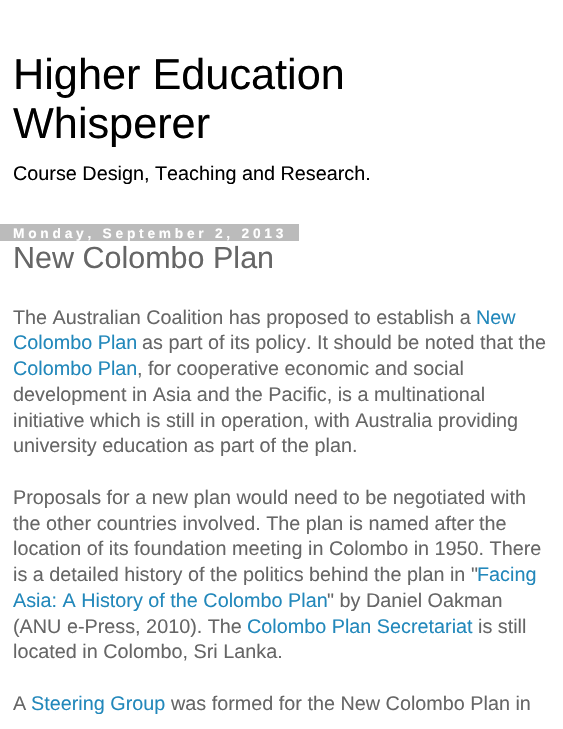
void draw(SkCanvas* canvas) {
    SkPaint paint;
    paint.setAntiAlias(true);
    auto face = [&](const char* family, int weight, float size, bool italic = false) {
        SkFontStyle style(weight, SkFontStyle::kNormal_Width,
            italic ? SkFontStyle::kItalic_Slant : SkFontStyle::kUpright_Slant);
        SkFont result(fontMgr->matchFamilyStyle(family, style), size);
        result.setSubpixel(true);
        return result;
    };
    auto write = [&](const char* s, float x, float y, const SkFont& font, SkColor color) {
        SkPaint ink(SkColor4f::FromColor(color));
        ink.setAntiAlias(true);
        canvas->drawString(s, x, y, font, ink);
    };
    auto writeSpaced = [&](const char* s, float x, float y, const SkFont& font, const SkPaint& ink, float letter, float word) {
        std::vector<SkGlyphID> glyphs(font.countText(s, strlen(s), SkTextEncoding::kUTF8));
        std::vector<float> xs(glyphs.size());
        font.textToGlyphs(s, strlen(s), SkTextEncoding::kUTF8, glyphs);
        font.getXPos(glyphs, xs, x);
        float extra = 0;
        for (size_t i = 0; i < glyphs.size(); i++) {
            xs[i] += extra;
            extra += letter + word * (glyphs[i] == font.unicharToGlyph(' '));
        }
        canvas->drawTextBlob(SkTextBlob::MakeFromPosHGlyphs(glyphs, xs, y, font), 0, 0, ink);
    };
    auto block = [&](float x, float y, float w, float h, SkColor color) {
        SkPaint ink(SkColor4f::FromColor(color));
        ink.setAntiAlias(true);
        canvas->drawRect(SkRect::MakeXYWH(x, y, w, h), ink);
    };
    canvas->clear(SK_ColorWHITE);
    auto kFont1 = face("Liberation Sans", 400, 43.25f);
    write("Higher Education", 13, 89, kFont1, SK_ColorBLACK);
    write("Whisperer", 13, 138, kFont1, SK_ColorBLACK);
    auto kFont2 = face("Liberation Sans", 400, 19.8f);
    write("Course Design, Teaching and Research.", 13, 180, kFont2, SK_ColorBLACK);
    block(0, 224, 299, 17, SkColorSetRGB(187, 187, 187));
    auto kFont3 = face("Liberation Sans", 700, 13.75f);
    paint.setColor(SK_ColorWHITE);
    writeSpaced("Monday, September 2, 2013", 13, 238, kFont3, paint, 3.75f, 0);
    auto kFont4 = face("Liberation Sans", 400, 30.5f);
    write("New Colombo Plan", 13, 268, kFont4, SkColorSetRGB(102, 102, 102));
    write("The Australian Coalition has proposed to establish a", 13, 324, kFont2, SkColorSetRGB(102, 102, 102));
    write("New", 476, 324, kFont2, SkColorSetRGB(34, 136, 187));
    write("Colombo Plan", 13, 349, kFont2, SkColorSetRGB(34, 136, 187));
    write("as part of its policy. It should be noted that the", 142, 349, kFont2, SkColorSetRGB(102, 102, 102));
    write("Colombo Plan", 13, 375, kFont2, SkColorSetRGB(34, 136, 187));
    write(", for cooperative economic and social", 137, 375, kFont2, SkColorSetRGB(102, 102, 102));
    write("development in Asia and the Pacific, is a multinational", 13, 401, kFont2, SkColorSetRGB(102, 102, 102));
    write("initiative which is still in operation, with Australia providing", 13, 427, kFont2, SkColorSetRGB(102, 102, 102));
    write("university education as part of the plan.", 13, 452, kFont2, SkColorSetRGB(102, 102, 102));
    write("Proposals for a new plan would need to be negotiated with", 13, 504, kFont2, SkColorSetRGB(102, 102, 102));
    write("the other countries involved. The plan is named after", 13, 530, kFont2, SkColorSetRGB(102, 102, 102));
    write("the", 479, 530, kFont2, SkColorSetRGB(102, 102, 102));
    write("location of its foundation meeting in Colombo in 1950. There", 13, 555, kFont2, SkColorSetRGB(102, 102, 102));
    write("is a detailed history of the politics behind the plan in \"", 13, 581, kFont2, SkColorSetRGB(102, 102, 102));
    write("Facing", 477, 581, kFont2, SkColorSetRGB(34, 136, 187));
    write("Asia: A History of the Colombo Plan", 13, 607, kFont2, SkColorSetRGB(34, 136, 187));
    write("\" by Daniel Oakman", 327, 607, kFont2, SkColorSetRGB(102, 102, 102));
    write("(ANU e-Press, 2010). The", 13, 633, kFont2, SkColorSetRGB(102, 102, 102));
    write("Colombo Plan Secretariat", 247, 633, kFont2, SkColorSetRGB(34, 136, 187));
    write("is still", 478, 633, kFont2, SkColorSetRGB(102, 102, 102));
    write("located in Colombo, Sri Lanka.", 13, 658, kFont2, SkColorSetRGB(102, 102, 102));
    write("A", 13, 710, kFont2, SkColorSetRGB(102, 102, 102));
    write("Steering Group", 31, 710, kFont2, SkColorSetRGB(34, 136, 187));
    write("was formed for the New Colombo Plan in", 171, 710, kFont2, SkColorSetRGB(102, 102, 102));
}
